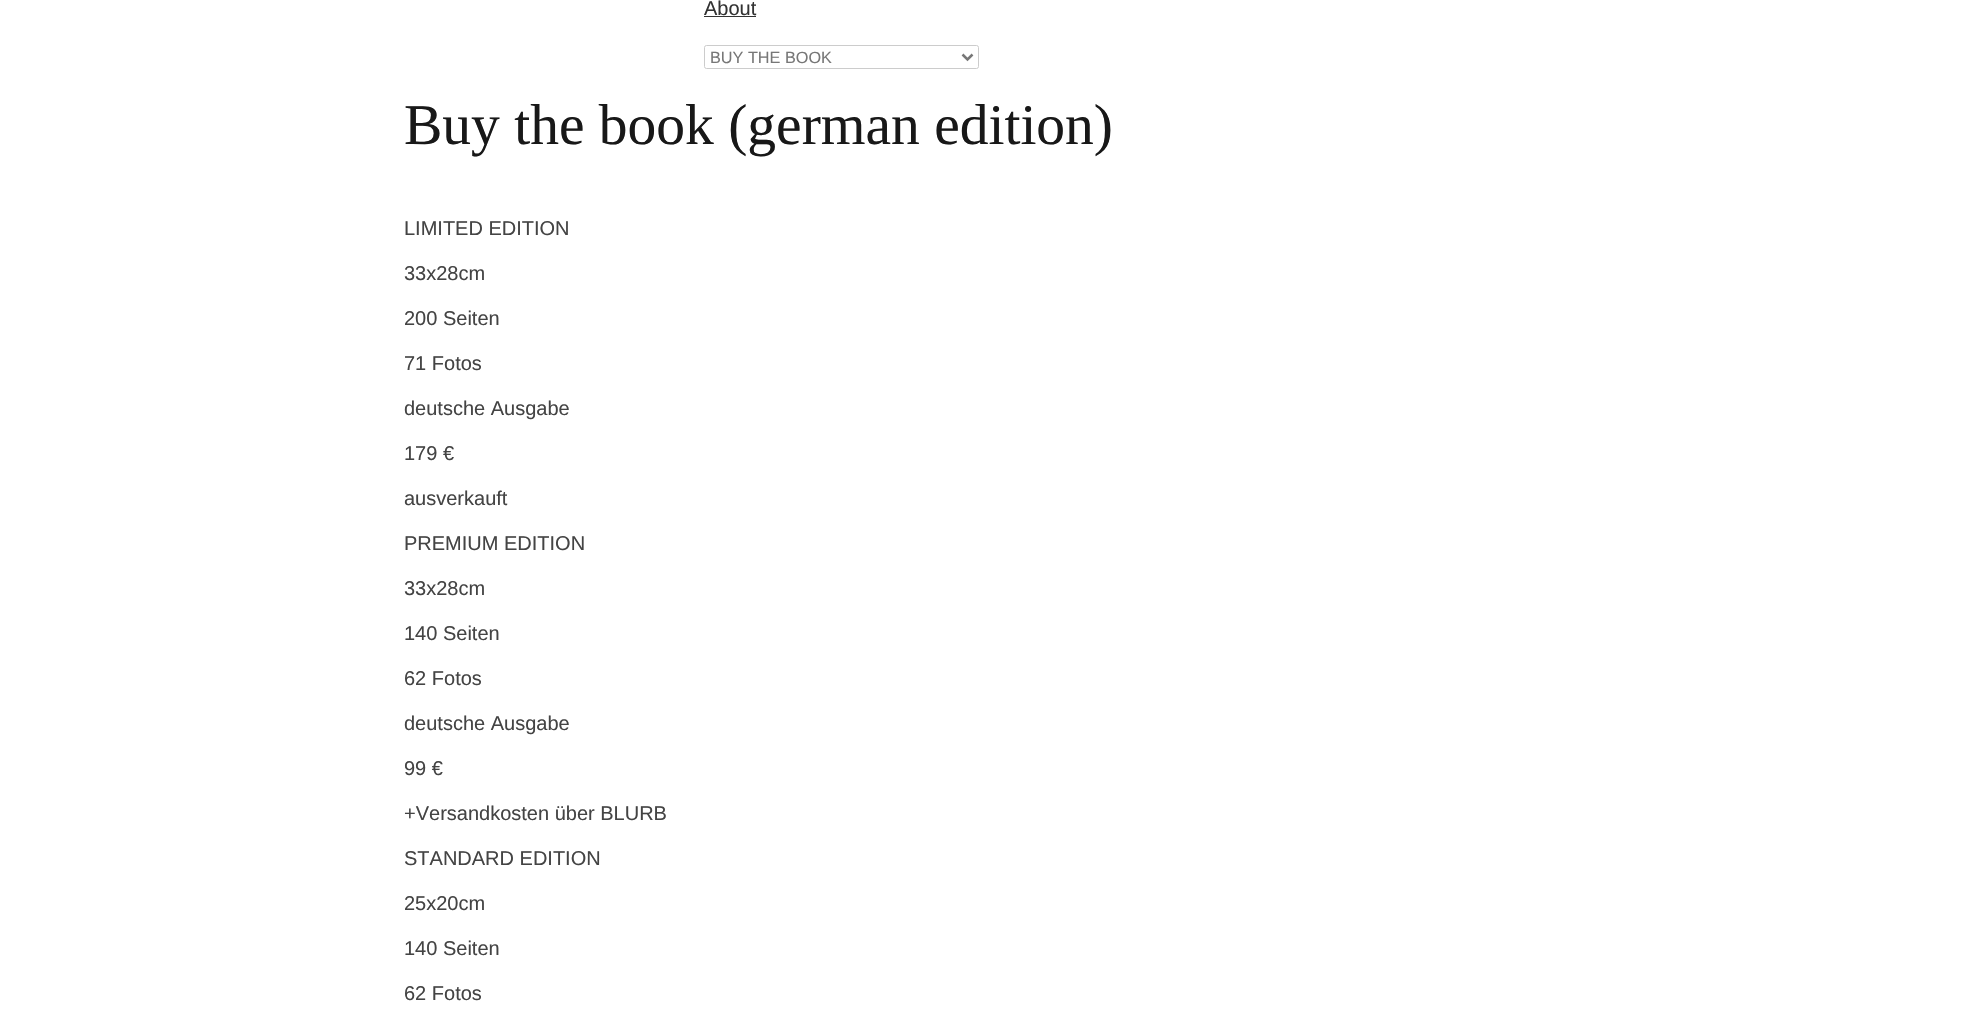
void draw(SkCanvas* canvas) {
    SkPaint paint;
    paint.setAntiAlias(true);
    auto face = [&](const char* family, int weight, float size, bool italic = false) {
        SkFontStyle style(weight, SkFontStyle::kNormal_Width,
            italic ? SkFontStyle::kItalic_Slant : SkFontStyle::kUpright_Slant);
        SkFont result(fontMgr->matchFamilyStyle(family, style), size);
        result.setSubpixel(true);
        return result;
    };
    auto write = [&](const char* s, float x, float y, const SkFont& font, SkColor color) {
        SkPaint ink(SkColor4f::FromColor(color));
        ink.setAntiAlias(true);
        canvas->drawString(s, x, y, font, ink);
    };
    auto block = [&](float x, float y, float w, float h, SkColor color) {
        SkPaint ink(SkColor4f::FromColor(color));
        ink.setAntiAlias(true);
        canvas->drawRect(SkRect::MakeXYWH(x, y, w, h), ink);
    };
    canvas->clear(SK_ColorWHITE);
    auto kFont1 = face("Liberation Sans", 400, 20);
    write("About", 704, 15, kFont1, SkColorSetRGB(51, 51, 51));
    block(704, 16, 52, 1, SkColorSetRGB(51, 51, 51));
    paint.setStyle(SkPaint::kStroke_Style);
    paint.setStrokeWidth(1);
    paint.setColor(SkColorSetRGB(204, 204, 204));
    canvas->drawRoundRect(SkRect::MakeXYWH(704.5f, 45.5f, 274, 23), 2, 2, paint);
    paint.setStrokeWidth(2.5f);
    paint.setColor(SkColorSetRGB(119, 119, 119));
    canvas->drawPath(SkPathBuilder().moveTo(962.5f, 54.5f).lineTo(967.5f, 59.5f).lineTo(972.5f, 54.5f).detach(), paint);
    auto kFont2 = face("Liberation Sans", 400, 16.25f);
    write("BUY THE BOOK", 710, 63, kFont2, SkColorSetRGB(119, 119, 119));
    auto kFont3 = face("Liberation Serif", 400, 57.5f);
    write("Buy the book (german edition)", 404, 144, kFont3, SkColorSetRGB(24, 24, 24));
    write("LIMITED EDITION", 404, 235, kFont1, SkColorSetRGB(68, 68, 68));
    write("33x28cm", 404, 280, kFont1, SkColorSetRGB(68, 68, 68));
    write("200 Seiten", 404, 325, kFont1, SkColorSetRGB(68, 68, 68));
    write("71 Fotos", 404, 370, kFont1, SkColorSetRGB(68, 68, 68));
    write("deutsche Ausgabe", 404, 415, kFont1, SkColorSetRGB(68, 68, 68));
    write("179 €", 404, 460, kFont1, SkColorSetRGB(68, 68, 68));
    write("ausverkauft", 404, 505, kFont1, SkColorSetRGB(68, 68, 68));
    write("PREMIUM EDITION", 404, 550, kFont1, SkColorSetRGB(68, 68, 68));
    write("33x28cm", 404, 595, kFont1, SkColorSetRGB(68, 68, 68));
    write("140 Seiten", 404, 640, kFont1, SkColorSetRGB(68, 68, 68));
    write("62 Fotos", 404, 685, kFont1, SkColorSetRGB(68, 68, 68));
    write("deutsche Ausgabe", 404, 730, kFont1, SkColorSetRGB(68, 68, 68));
    write("99 €", 404, 775, kFont1, SkColorSetRGB(68, 68, 68));
    write("+Versandkosten über BLURB", 404, 820, kFont1, SkColorSetRGB(68, 68, 68));
    write("STANDARD EDITION", 404, 865, kFont1, SkColorSetRGB(68, 68, 68));
    write("25x20cm", 404, 910, kFont1, SkColorSetRGB(68, 68, 68));
    write("140 Seiten", 404, 955, kFont1, SkColorSetRGB(68, 68, 68));
    write("62 Fotos", 404, 1000, kFont1, SkColorSetRGB(68, 68, 68));
}
